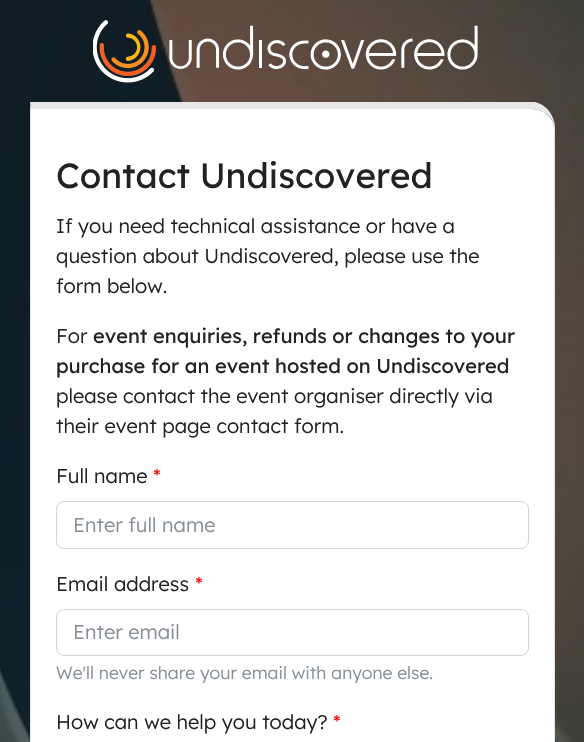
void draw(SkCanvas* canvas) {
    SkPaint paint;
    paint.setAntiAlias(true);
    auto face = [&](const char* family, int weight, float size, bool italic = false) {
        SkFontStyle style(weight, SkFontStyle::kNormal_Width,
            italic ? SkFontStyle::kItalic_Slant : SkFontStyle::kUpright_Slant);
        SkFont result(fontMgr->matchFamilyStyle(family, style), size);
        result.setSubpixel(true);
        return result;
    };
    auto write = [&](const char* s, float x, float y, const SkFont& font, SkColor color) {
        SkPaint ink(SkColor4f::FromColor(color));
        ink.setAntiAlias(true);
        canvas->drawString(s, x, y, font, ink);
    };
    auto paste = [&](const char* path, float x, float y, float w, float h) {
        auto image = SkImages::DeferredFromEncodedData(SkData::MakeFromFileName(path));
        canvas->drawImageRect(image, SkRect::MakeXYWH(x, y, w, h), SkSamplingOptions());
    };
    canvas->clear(SkColorSetRGB(20, 36, 48));
    paste("pic1.png", 0, 0, 584, 742);
    paste("pic2.png", 93, 20, 385, 63);
    paint.setColor(SK_ColorWHITE);
    canvas->drawPath(SkPathBuilder().moveTo(31, 109).lineTo(530, 109).cubicTo(543, 109, 554, 117, 554, 128).lineTo(554, 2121).lineTo(55, 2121).cubicTo(42, 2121, 31, 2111, 31, 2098).close().detach(), paint);
    paint.setColor(SkColorSetRGB(231, 231, 231));
    canvas->drawPath(SkPathBuilder().moveTo(30, 102).lineTo(535, 102).cubicTo(543, 104, 549, 109, 552, 116).lineTo(552, 120).cubicTo(548, 113, 539, 109, 530, 109).lineTo(31, 109).close().detach(), paint);
    paint.setColor(SkColorSetRGB(227, 231, 235));
    canvas->drawPath(SkPathBuilder().moveTo(555, 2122).lineTo(555, 128).cubicTo(555, 124, 554, 120, 552, 116).lineTo(552, 120).cubicTo(553, 122, 554, 125, 554, 128).lineTo(554, 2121).close().detach(), paint);
    canvas->drawPath(SkPathBuilder().moveTo(31, 109).lineTo(30, 102).lineTo(30, 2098).cubicTo(30, 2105, 33, 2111, 37, 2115).lineTo(38, 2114).cubicTo(34, 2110, 31, 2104, 31, 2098).close().detach(), paint);
    auto kFont1 = face("Lexend Deca", 400, 35);
    write("Contact Undiscovered", 56, 188, kFont1, SkColorSetRGB(34, 34, 34));
    auto kFont2 = face("Lexend Deca", 300, 20);
    write("If you need technical assistance or have a", 56, 233, kFont2, SkColorSetRGB(34, 34, 34));
    write("question about Undiscovered, please use the", 56, 263, kFont2, SkColorSetRGB(34, 34, 34));
    write("form below.", 56, 293, kFont2, SkColorSetRGB(34, 34, 34));
    write("For", 56, 343, kFont2, SkColorSetRGB(34, 34, 34));
    auto kFont3 = face("Lexend Deca", 400, 20);
    write("event enquiries, refunds or changes to your", 93, 343, kFont3, SkColorSetRGB(34, 34, 34));
    write("purchase for an event hosted on Undiscovered", 56, 373, kFont3, SkColorSetRGB(34, 34, 34));
    write("please contact the event organiser directly via", 56, 403, kFont2, SkColorSetRGB(34, 34, 34));
    write("their event page contact form.", 56, 433, kFont2, SkColorSetRGB(34, 34, 34));
    write("Full name", 56, 483, kFont2, SkColorSetRGB(34, 34, 34));
    write("*", 153, 483, kFont2, SkColorSetRGB(255, 0, 0));
    paint.setStyle(SkPaint::kStroke_Style);
    paint.setStrokeWidth(1);
    paint.setColor(SkColorSetRGB(206, 212, 218));
    canvas->drawRoundRect(SkRect::MakeXYWH(56.5f, 501.5f, 472, 47), 7.5f, 7.5f, paint);
    write("Enter full name", 73, 532, kFont2, SkColorSetRGB(134, 142, 150));
    write("Email address", 56, 591, kFont2, SkColorSetRGB(34, 34, 34));
    write("*", 195, 591, kFont2, SkColorSetRGB(255, 0, 0));
    canvas->drawRoundRect(SkRect::MakeXYWH(56.5f, 609.5f, 472, 46), 7.5f, 7.5f, paint);
    write("Enter email", 73, 639, kFont2, SkColorSetRGB(134, 142, 150));
    auto kFont4 = face("Lexend Deca", 300, 17.5f);
    write("We'll never share your email with anyone else.", 56, 679, kFont4, SkColorSetRGB(134, 142, 150));
    write("How can we help you today?", 56, 729, kFont2, SkColorSetRGB(34, 34, 34));
    write("*", 333, 729, kFont2, SkColorSetRGB(255, 0, 0));
}
